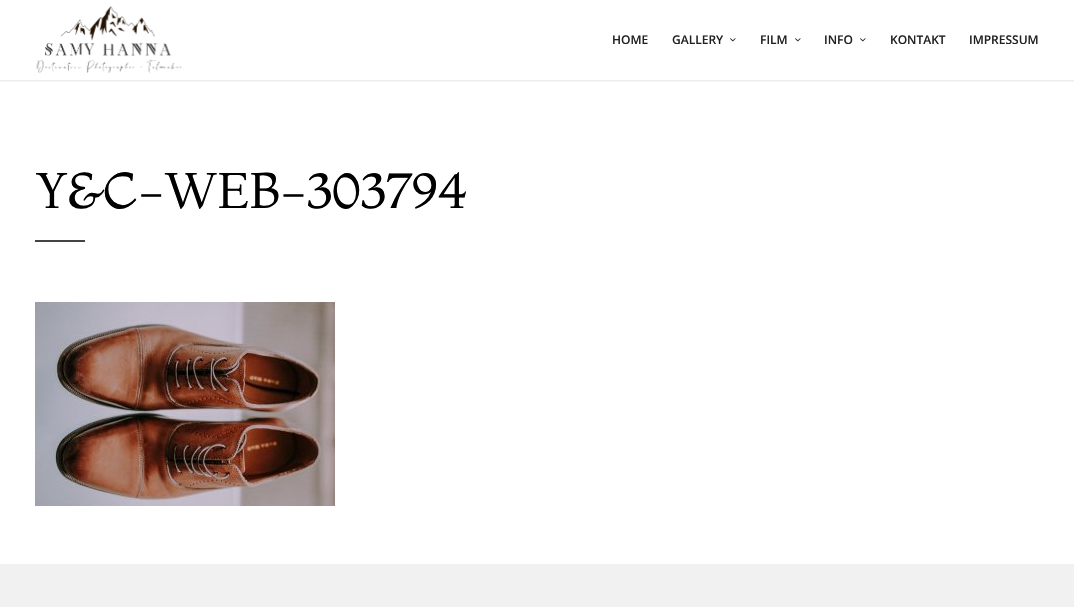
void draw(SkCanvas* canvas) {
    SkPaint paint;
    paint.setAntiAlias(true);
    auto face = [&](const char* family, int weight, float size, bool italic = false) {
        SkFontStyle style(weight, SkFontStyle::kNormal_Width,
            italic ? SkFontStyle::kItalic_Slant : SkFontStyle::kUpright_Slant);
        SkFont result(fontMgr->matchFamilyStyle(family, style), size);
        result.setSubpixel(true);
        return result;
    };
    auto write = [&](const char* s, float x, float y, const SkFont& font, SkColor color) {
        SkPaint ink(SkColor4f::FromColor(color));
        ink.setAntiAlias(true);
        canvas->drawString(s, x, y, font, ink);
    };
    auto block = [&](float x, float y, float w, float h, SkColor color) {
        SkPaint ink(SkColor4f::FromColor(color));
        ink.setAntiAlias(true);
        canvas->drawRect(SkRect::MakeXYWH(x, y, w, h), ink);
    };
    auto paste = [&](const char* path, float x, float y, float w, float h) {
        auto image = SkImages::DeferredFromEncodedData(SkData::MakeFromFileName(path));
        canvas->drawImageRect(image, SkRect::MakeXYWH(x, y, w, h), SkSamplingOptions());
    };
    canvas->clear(SK_ColorWHITE);
    canvas->save();
    canvas->clipRect(SkRect::MakeXYWH(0, 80, 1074, 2));
    paint.setColor(SkColorSetARGB(26, 0, 0, 0));
    paint.setMaskFilter(SkMaskFilter::MakeBlur(kNormal_SkBlurStyle, 1));
    canvas->drawRect(SkRect::MakeXYWH(-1, -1, 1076, 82), paint);
    paint.setMaskFilter(nullptr);
    canvas->restore();
    paste("pic1.png", 36, 6, 146, 68);
    auto kFont1 = face("Open Sans", 600, 12);
    write("HOME", 612, 44, kFont1, SkColorSetRGB(34, 34, 34));
    write("GALLERY", 672, 44, kFont1, SkColorSetRGB(34, 34, 34));
    paste("pic2.png", 730, 38, 6, 4);
    write("FILM", 760, 44, kFont1, SkColorSetRGB(34, 34, 34));
    paste("pic2.png", 795, 38, 6, 4);
    write("INFO", 824, 44, kFont1, SkColorSetRGB(34, 34, 34));
    paste("pic2.png", 860, 38, 6, 4);
    write("KONTAKT", 890, 44, kFont1, SkColorSetRGB(34, 34, 34));
    write("IMPRESSUM", 969, 44, kFont1, SkColorSetRGB(34, 34, 34));
    auto kFont2 = face("Montaga", 400, 50);
    write("Y&C-WEB-303794", 35, 208, kFont2, SK_ColorBLACK);
    block(35, 240, 50, 2, SkColorSetRGB(68, 68, 68));
    paste("pic3.png", 35, 302, 300, 204);
    block(0, 564, 1074, 43, SkColorSetRGB(241, 241, 241));
}
